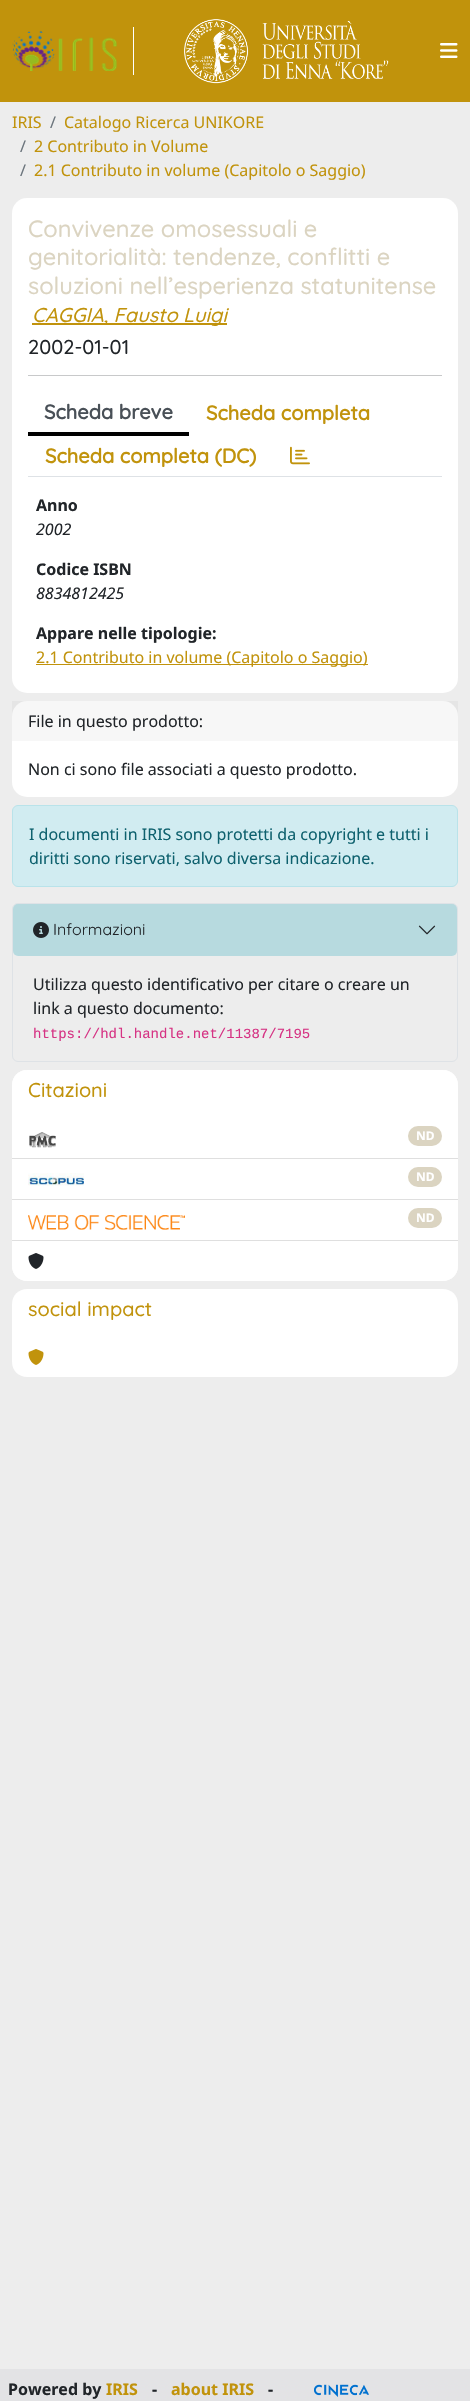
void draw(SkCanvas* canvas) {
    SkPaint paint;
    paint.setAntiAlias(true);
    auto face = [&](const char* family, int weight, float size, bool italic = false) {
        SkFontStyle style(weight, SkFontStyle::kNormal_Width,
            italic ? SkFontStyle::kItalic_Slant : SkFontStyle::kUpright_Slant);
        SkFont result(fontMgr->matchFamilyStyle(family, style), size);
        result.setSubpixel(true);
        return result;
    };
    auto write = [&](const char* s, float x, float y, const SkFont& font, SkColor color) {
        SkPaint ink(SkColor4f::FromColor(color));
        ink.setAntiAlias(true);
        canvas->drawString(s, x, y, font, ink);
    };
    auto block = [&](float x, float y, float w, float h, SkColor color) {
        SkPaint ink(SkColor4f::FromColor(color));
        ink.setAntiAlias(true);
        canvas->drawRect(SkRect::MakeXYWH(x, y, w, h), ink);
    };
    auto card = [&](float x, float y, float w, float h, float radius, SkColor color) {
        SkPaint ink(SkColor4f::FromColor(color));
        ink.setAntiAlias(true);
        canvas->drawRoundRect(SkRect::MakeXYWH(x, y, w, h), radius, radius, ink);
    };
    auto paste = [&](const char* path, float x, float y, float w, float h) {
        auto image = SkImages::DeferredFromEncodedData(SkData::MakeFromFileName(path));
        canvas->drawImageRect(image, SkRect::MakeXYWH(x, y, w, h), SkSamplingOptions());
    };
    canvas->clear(SkColorSetRGB(237, 237, 237));
    block(0, 0, 470, 102, SkColorSetRGB(193, 147, 12));
    block(133, 27, 1, 48, SK_ColorWHITE);
    paste("pic1.png", 12, 31, 105, 40);
    paste("pic2.png", 184, 19, 205, 65);
    paste("pic3.png", 440, 43, 18, 15);
    auto kFont1 = face("Noto Sans", 400, 16);
    write("IRIS", 12, 128, kFont1, SkColorSetRGB(193, 147, 12));
    write("/", 50, 128, kFont1, SkColorSetRGB(108, 117, 125));
    write("Catalogo Ricerca UNIKORE", 64, 128, kFont1, SkColorSetRGB(193, 147, 12));
    write("/", 20, 152, kFont1, SkColorSetRGB(108, 117, 125));
    write("2 Contributo in Volume", 34, 152, kFont1, SkColorSetRGB(193, 147, 12));
    write("/", 20, 176, kFont1, SkColorSetRGB(108, 117, 125));
    write("2.1 Contributo in volume (Capitolo o Saggio)", 34, 176, kFont1, SkColorSetRGB(193, 147, 12));
    card(12, 198, 446, 495, 15, SK_ColorWHITE);
    auto kFont2 = face("Quicksand", 500, 23.6f);
    write("Convivenze omosessuali e", 28, 237, kFont2, SkColorSetRGB(219, 212, 193));
    write("genitorialità: tendenze, conflitti e", 28, 265, kFont2, SkColorSetRGB(219, 212, 193));
    write("soluzioni nell’esperienza statunitense", 28, 294, kFont2, SkColorSetRGB(219, 212, 193));
    block(32, 323, 195, 2, SkColorSetRGB(193, 147, 12));
    auto kFont3 = face("Quicksand", 500, 20, true);
    write("CAGGIA, Fausto Luigi", 32, 322, kFont3, SkColorSetRGB(193, 147, 12));
    auto kFont4 = face("Quicksand", 500, 20);
    write("2002-01-01", 28, 354, kFont4, SkColorSetRGB(33, 37, 41));
    block(28, 375, 414, 1, SkColorSetRGB(200, 201, 202));
    block(28, 476, 414, 1, SkColorSetRGB(222, 226, 230));
    block(28, 432, 161, 4, SK_ColorBLACK);
    auto kFont5 = face("Quicksand", 700, 20);
    write("Scheda breve", 44, 419, kFont5, SkColorSetRGB(73, 80, 87));
    write("Scheda completa", 206, 420, kFont5, SkColorSetRGB(193, 147, 12));
    write("Scheda completa (DC)", 45, 463, kFont5, SkColorSetRGB(193, 147, 12));
    paste("pic4.png", 290, 446, 20, 19);
    auto kFont6 = face("Noto Sans", 700, 16);
    write("Anno", 36, 511, kFont6, SkColorSetRGB(33, 37, 41));
    auto kFont7 = face("Noto Sans", 400, 16, true);
    write("2002", 36, 535, kFont7, SkColorSetRGB(33, 37, 41));
    write("Codice ISBN", 36, 575, kFont6, SkColorSetRGB(33, 37, 41));
    write("8834812425", 36, 599, kFont7, SkColorSetRGB(33, 37, 41));
    write("Appare nelle tipologie:", 36, 639, kFont6, SkColorSetRGB(33, 37, 41));
    block(36, 664, 332, 1, SkColorSetRGB(193, 147, 12));
    write("2.1 Contributo in volume (Capitolo o Saggio)", 36, 663, kFont1, SkColorSetRGB(193, 147, 12));
    card(12, 701, 446, 96, 15, SK_ColorWHITE);
    block(12, 701, 446, 40, SkColorSetARGB(8, 0, 0, 0));
    write("File in questo prodotto:", 28, 727, kFont1, SkColorSetRGB(33, 37, 41));
    write("Non ci sono file associati a questo prodotto.", 28, 775, kFont1, SkColorSetRGB(33, 37, 41));
    paint.setColor(SkColorSetRGB(209, 236, 241));
    canvas->drawRoundRect(SkRect::MakeXYWH(12.5f, 805.5f, 445, 81), 5.5f, 5.5f, paint);
    paint.setStyle(SkPaint::kStroke_Style);
    paint.setStrokeWidth(1);
    paint.setColor(SkColorSetRGB(185, 227, 234));
    canvas->drawRoundRect(SkRect::MakeXYWH(12.5f, 805.5f, 445, 81), 5.5f, 5.5f, paint);
    write("I documenti in IRIS sono protetti da copyright e tutti i", 29, 840, kFont1, SkColorSetRGB(14, 97, 110));
    write("diritti sono riservati, salvo diversa indicazione.", 29, 864, kFont1, SkColorSetRGB(14, 97, 110));
    paint.setColor(SkColorSetRGB(222, 226, 230));
    canvas->drawRoundRect(SkRect::MakeXYWH(12.5f, 903.5f, 445, 158), 5.5f, 5.5f, paint);
    card(13, 904, 444, 52, 5, SkColorSetARGB(64, 23, 162, 184));
    paste("pic5.png", 33, 922, 16, 16);
    auto kFont8 = face("Quicksand", 400, 16);
    write("Informazioni", 53, 935, kFont8, SkColorSetRGB(33, 37, 41));
    paste("pic6.png", 418, 925, 18, 10);
    write("Utilizza questo identificativo per citare o creare un", 33, 990, kFont1, SkColorSetRGB(33, 37, 41));
    write("link a questo documento:", 33, 1014, kFont1, SkColorSetRGB(33, 37, 41));
    auto kFont9 = face("Liberation Mono", 400, 14);
    write("https://hdl.handle.net/11387/7195", 33, 1038, kFont9, SkColorSetRGB(214, 51, 132));
    card(12, 1070, 446, 211, 15, SK_ColorWHITE);
    paint.setStyle(SkPaint::kFill_Style);
    paint.setColor(SK_ColorWHITE);
    canvas->drawPath(SkPathBuilder().moveTo(27, 1070).lineTo(443, 1070).cubicTo(451.5f, 1070, 458, 1076.5f, 458, 1085).lineTo(458, 1118).lineTo(12, 1118).lineTo(12, 1085).cubicTo(12, 1076.5f, 18.5f, 1070, 27, 1070).close().detach(), paint);
    write("Citazioni", 28, 1097, kFont4, SkColorSetRGB(193, 147, 12));
    block(12, 1158, 446, 1, SkColorSetRGB(223, 223, 223));
    paste("pic7.png", 29, 1132, 27, 16);
    card(408, 1126, 34, 20, 10, SkColorSetRGB(219, 212, 193));
    auto kFont10 = face("Noto Sans", 700, 12);
    write("ND", 416, 1140, kFont10, SK_ColorWHITE);
    block(12, 1199, 446, 1, SkColorSetRGB(223, 223, 223));
    paste("pic8.png", 28, 1173, 56, 13);
    card(408, 1167, 34, 20, 10, SkColorSetRGB(219, 212, 193));
    write("ND", 416, 1181, kFont10, SK_ColorWHITE);
    block(12, 1240, 446, 1, SkColorSetRGB(223, 223, 223));
    paste("pic9.png", 28, 1215, 157, 15);
    card(408, 1208, 34, 20, 10, SkColorSetRGB(219, 212, 193));
    write("ND", 416, 1222, kFont10, SK_ColorWHITE);
    canvas->drawPath(SkPathBuilder().moveTo(12, 1241).lineTo(458, 1241).lineTo(458, 1266).cubicTo(458, 1274.5f, 451.5f, 1281, 443, 1281).lineTo(27, 1281).cubicTo(18.5f, 1281, 12, 1274.5f, 12, 1266).close().detach(), paint);
    paste("pic10.png", 28, 1253, 16, 16);
    canvas->drawPath(SkPathBuilder().moveTo(27, 1289).lineTo(443, 1289).cubicTo(451.5f, 1289, 458, 1295.5f, 458, 1304).lineTo(458, 1337).lineTo(12, 1337).lineTo(12, 1304).cubicTo(12, 1295.5f, 18.5f, 1289, 27, 1289).close().detach(), paint);
    write("social impact", 28, 1316, kFont4, SkColorSetRGB(193, 147, 12));
    canvas->drawPath(SkPathBuilder().moveTo(12, 1337).lineTo(458, 1337).lineTo(458, 1362).cubicTo(458, 1370.5f, 451.5f, 1377, 443, 1377).lineTo(27, 1377).cubicTo(18.5f, 1377, 12, 1370.5f, 12, 1362).close().detach(), paint);
    paste("pic11.png", 28, 1349, 16, 16);
    block(0, 2369, 470, 32, SkColorSetRGB(227, 227, 229));
    write("Powered by", 8, 2395, kFont6, SkColorSetRGB(33, 37, 41));
    write("IRIS", 106, 2395, kFont6, SkColorSetRGB(193, 147, 12));
    write("-", 152, 2395, kFont6, SkColorSetRGB(33, 37, 41));
    write("about IRIS", 171, 2395, kFont6, SkColorSetRGB(193, 147, 12));
    write("-", 268, 2395, kFont6, SkColorSetRGB(33, 37, 41));
    paste("pic12.png", 314, 2384, 55, 13);
}
